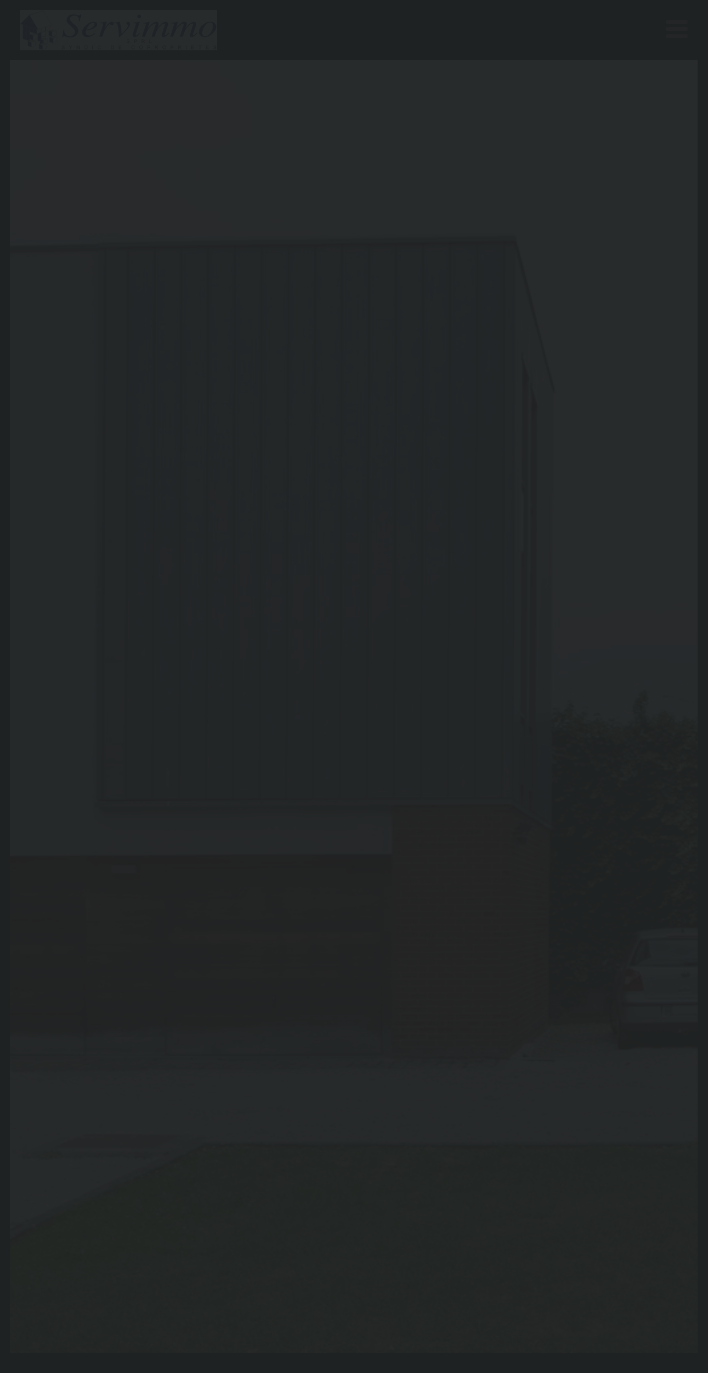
void draw(SkCanvas* canvas) {
    SkPaint paint;
    paint.setAntiAlias(true);
    auto paste = [&](const char* path, float x, float y, float w, float h) {
        auto image = SkImages::DeferredFromEncodedData(SkData::MakeFromFileName(path));
        canvas->drawImageRect(image, SkRect::MakeXYWH(x, y, w, h), SkSamplingOptions());
    };
    canvas->clear(SkColorSetRGB(31, 34, 35));
    paste("pic1.png", 20, 10, 197, 41);
    paste("pic2.png", 666, 20, 22, 18);
    paste("pic3.png", 10, 60, 688, 1293);
}
